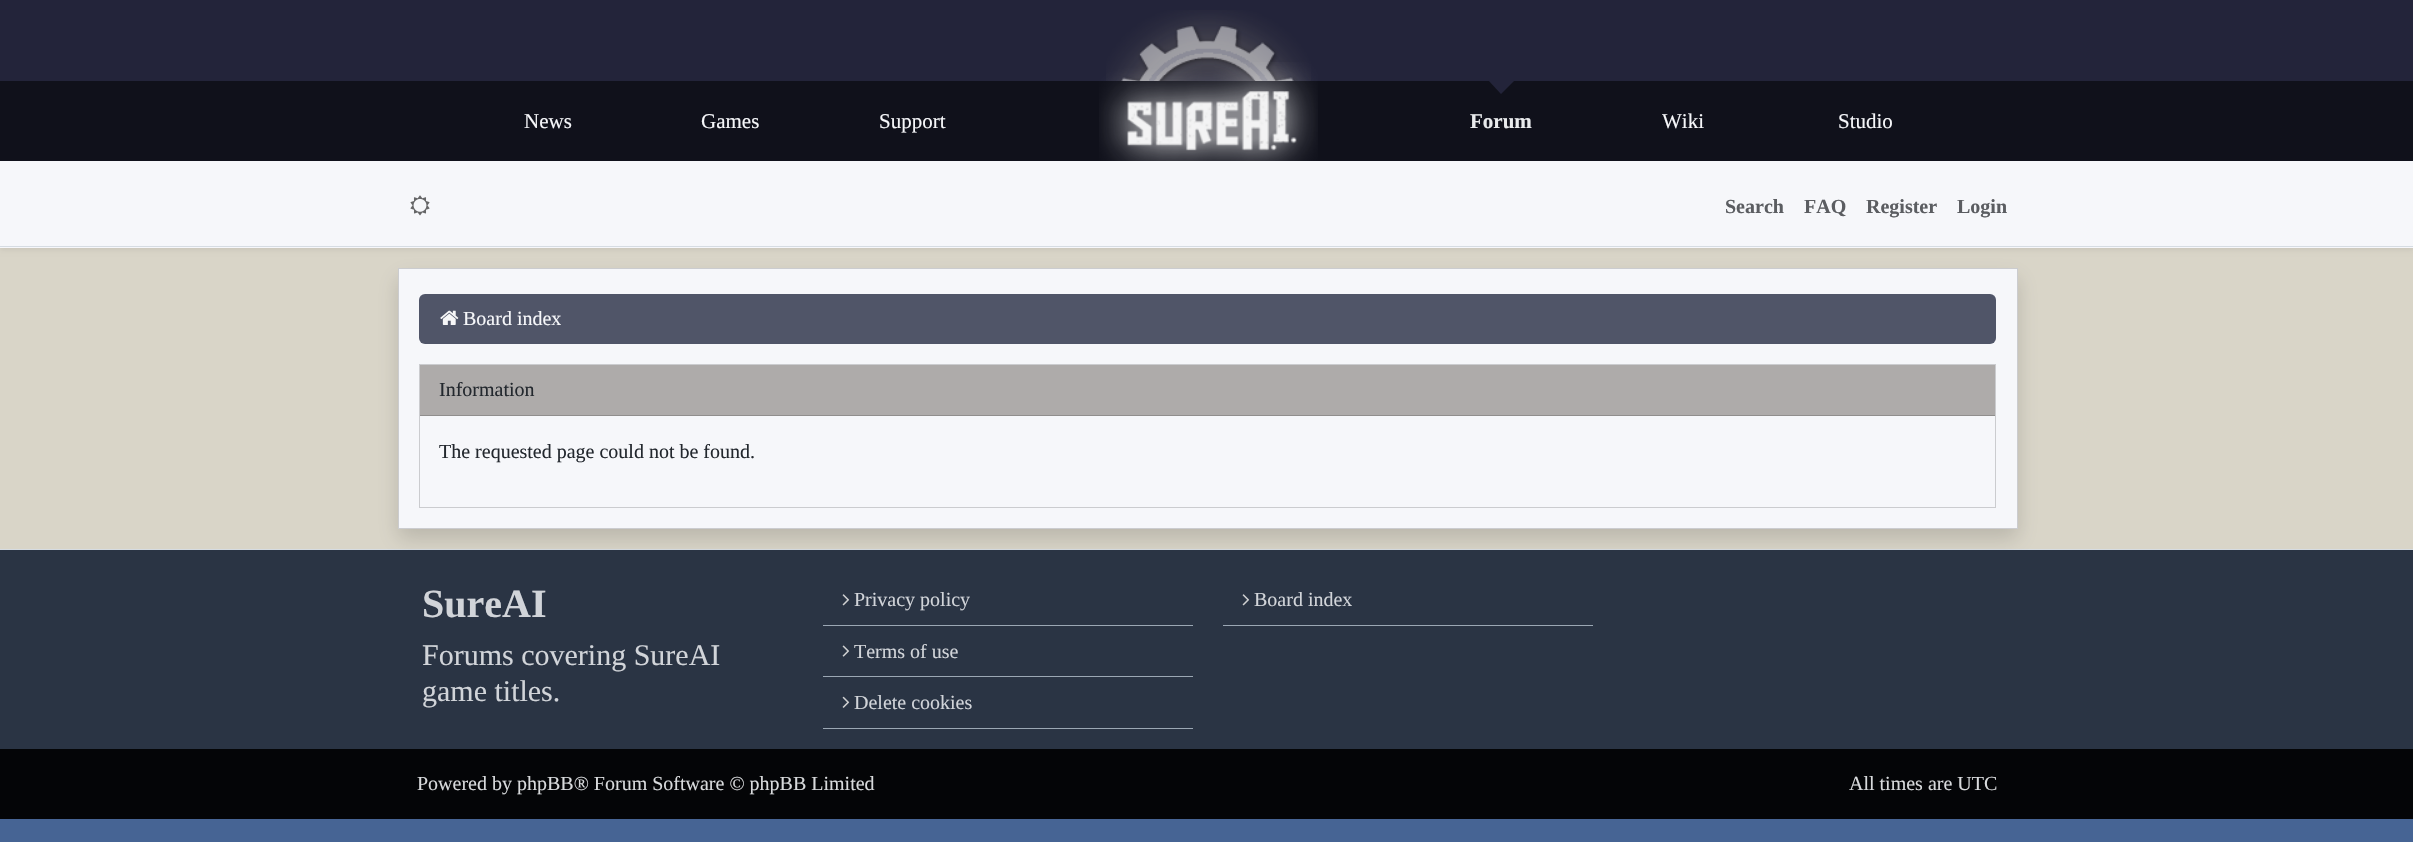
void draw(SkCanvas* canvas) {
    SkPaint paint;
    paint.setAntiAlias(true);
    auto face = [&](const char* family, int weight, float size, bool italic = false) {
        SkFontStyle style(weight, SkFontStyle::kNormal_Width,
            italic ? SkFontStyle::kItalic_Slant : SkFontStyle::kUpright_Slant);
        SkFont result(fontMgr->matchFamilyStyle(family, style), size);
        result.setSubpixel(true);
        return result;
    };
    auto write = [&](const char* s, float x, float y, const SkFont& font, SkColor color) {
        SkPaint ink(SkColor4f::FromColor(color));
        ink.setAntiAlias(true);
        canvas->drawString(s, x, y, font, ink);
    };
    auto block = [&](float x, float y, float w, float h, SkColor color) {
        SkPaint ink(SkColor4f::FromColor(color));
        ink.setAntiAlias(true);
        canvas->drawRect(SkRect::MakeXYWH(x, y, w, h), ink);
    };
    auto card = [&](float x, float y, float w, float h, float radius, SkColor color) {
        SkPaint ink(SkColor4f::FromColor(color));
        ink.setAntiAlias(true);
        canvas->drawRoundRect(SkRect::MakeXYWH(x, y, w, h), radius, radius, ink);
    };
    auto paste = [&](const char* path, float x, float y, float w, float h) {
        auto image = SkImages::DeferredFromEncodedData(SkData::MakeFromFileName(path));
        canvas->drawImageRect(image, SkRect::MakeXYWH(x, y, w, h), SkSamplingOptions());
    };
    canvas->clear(SkColorSetRGB(70, 100, 148));
    block(0, 248, 2413, 301, SkColorSetRGB(217, 213, 200));
    block(0, 0, 2413, 81, SkColorSetRGB(35, 36, 58));
    paste("pic1.png", 1106, 10, 205, 71);
    paste("pic2.png", 1119, 25, 179, 56);
    block(0, 81, 2413, 80, SkColorSetRGB(16, 17, 27));
    paste("pic3.png", 1099, 62, 219, 99);
    auto kFont1 = face("Liberation Serif", 400, 21);
    write("News", 524, 128, kFont1, SkColorSetRGB(246, 247, 250));
    write("Games", 701, 128, kFont1, SkColorSetRGB(246, 247, 250));
    write("Support", 879, 128, kFont1, SkColorSetRGB(246, 247, 250));
    paint.setColor(SkColorSetRGB(35, 36, 58));
    canvas->drawPath(SkPathBuilder().moveTo(1489, 81).lineTo(1514, 81).lineTo(1501, 94).close().detach(), paint);
    auto kFont2 = face("Liberation Serif", 700, 21);
    write("Forum", 1470, 128, kFont2, SkColorSetRGB(233, 235, 237));
    write("Wiki", 1662, 128, kFont1, SkColorSetRGB(246, 247, 250));
    write("Studio", 1838, 128, kFont1, SkColorSetRGB(246, 247, 250));
    paint.setColor(SkColorSetARGB(18, 4, 5, 7));
    paint.setMaskFilter(SkMaskFilter::MakeBlur(kNormal_SkBlurStyle, 2.5f));
    canvas->drawRect(SkRect::MakeXYWH(0, 164, 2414, 86), paint);
    paint.setMaskFilter(nullptr);
    block(0, 549, 2413, 1, SkColorSetRGB(214, 220, 226));
    paint.setColor(SkColorSetARGB(38, 4, 5, 7));
    paint.setMaskFilter(SkMaskFilter::MakeBlur(kNormal_SkBlurStyle, 10));
    canvas->drawRect(SkRect::MakeXYWH(398, 278, 1620, 261), paint);
    paint.setMaskFilter(nullptr);
    block(0, 161, 2413, 87, SkColorSetRGB(246, 247, 250));
    block(0, 246, 2413, 1, SkColorSetRGB(214, 220, 226));
    paste("pic4.png", 410, 195, 20, 21);
    auto kFont3 = face("Liberation Serif", 700, 20);
    write("Search", 1725, 213, kFont3, SkColorSetRGB(91, 93, 97));
    write("FAQ", 1804, 213, kFont3, SkColorSetRGB(91, 93, 97));
    write("Register", 1866, 213, kFont3, SkColorSetRGB(91, 93, 97));
    write("Login", 1957, 213, kFont3, SkColorSetRGB(91, 93, 97));
    paint.setColor(SkColorSetRGB(246, 247, 250));
    canvas->drawRect(SkRect::MakeXYWH(398.5f, 268.5f, 1619, 260), paint);
    paint.setStyle(SkPaint::kStroke_Style);
    paint.setStrokeWidth(1);
    paint.setColor(SkColorSetRGB(203, 204, 207));
    canvas->drawRect(SkRect::MakeXYWH(398.5f, 268.5f, 1619, 260), paint);
    card(419, 294, 1577, 50, 6, SkColorSetRGB(80, 85, 104));
    paste("pic5.png", 440, 310, 19, 15);
    auto kFont4 = face("Liberation Serif", 400, 20);
    write("Board index", 463, 325, kFont4, SkColorSetRGB(246, 247, 250));
    canvas->drawRect(SkRect::MakeXYWH(419.5f, 364.5f, 1576, 143), paint);
    block(420, 365, 1575, 50, SkColorSetRGB(174, 171, 170));
    block(420, 415, 1575, 1, SkColorSetRGB(144, 142, 141));
    write("Information", 439, 396, kFont4, SkColorSetRGB(35, 40, 46));
    write("The requested page could not be found.", 439, 458, kFont4, SkColorSetRGB(35, 40, 46));
    block(0, 749, 2413, 70, SkColorSetRGB(4, 5, 7));
    block(0, 550, 2413, 199, SkColorSetRGB(42, 52, 68));
    auto kFont5 = face("Liberation Serif", 700, 40);
    write("SureAI", 422, 617, kFont5, SkColorSetRGB(209, 212, 217));
    auto kFont6 = face("Liberation Serif", 400, 30);
    write("Forums covering SureAI", 422, 665, kFont6, SkColorSetRGB(209, 212, 217));
    write("game titles.", 422, 701, kFont6, SkColorSetRGB(209, 212, 217));
    block(823, 625, 370, 1, SkColorSetRGB(155, 167, 180));
    paste("pic6.png", 842, 594, 8, 12);
    write("Privacy policy", 854, 606, kFont4, SkColorSetRGB(209, 212, 217));
    block(823, 676, 370, 1, SkColorSetRGB(155, 167, 180));
    paste("pic7.png", 842, 645, 8, 12);
    write("Terms of use", 854, 658, kFont4, SkColorSetRGB(209, 212, 217));
    block(823, 728, 370, 1, SkColorSetRGB(155, 167, 180));
    paste("pic8.png", 842, 696, 8, 12);
    write("Delete cookies", 854, 709, kFont4, SkColorSetRGB(209, 212, 217));
    block(1223, 625, 370, 1, SkColorSetRGB(155, 167, 180));
    paste("pic6.png", 1242, 594, 8, 12);
    write("Board index", 1254, 606, kFont4, SkColorSetRGB(209, 212, 217));
    write("Powered by phpBB® Forum Software © phpBB Limited", 417, 790, kFont4, SkColorSetRGB(216, 218, 220));
    write("All times are UTC", 1849, 790, kFont4, SkColorSetRGB(216, 218, 220));
}
